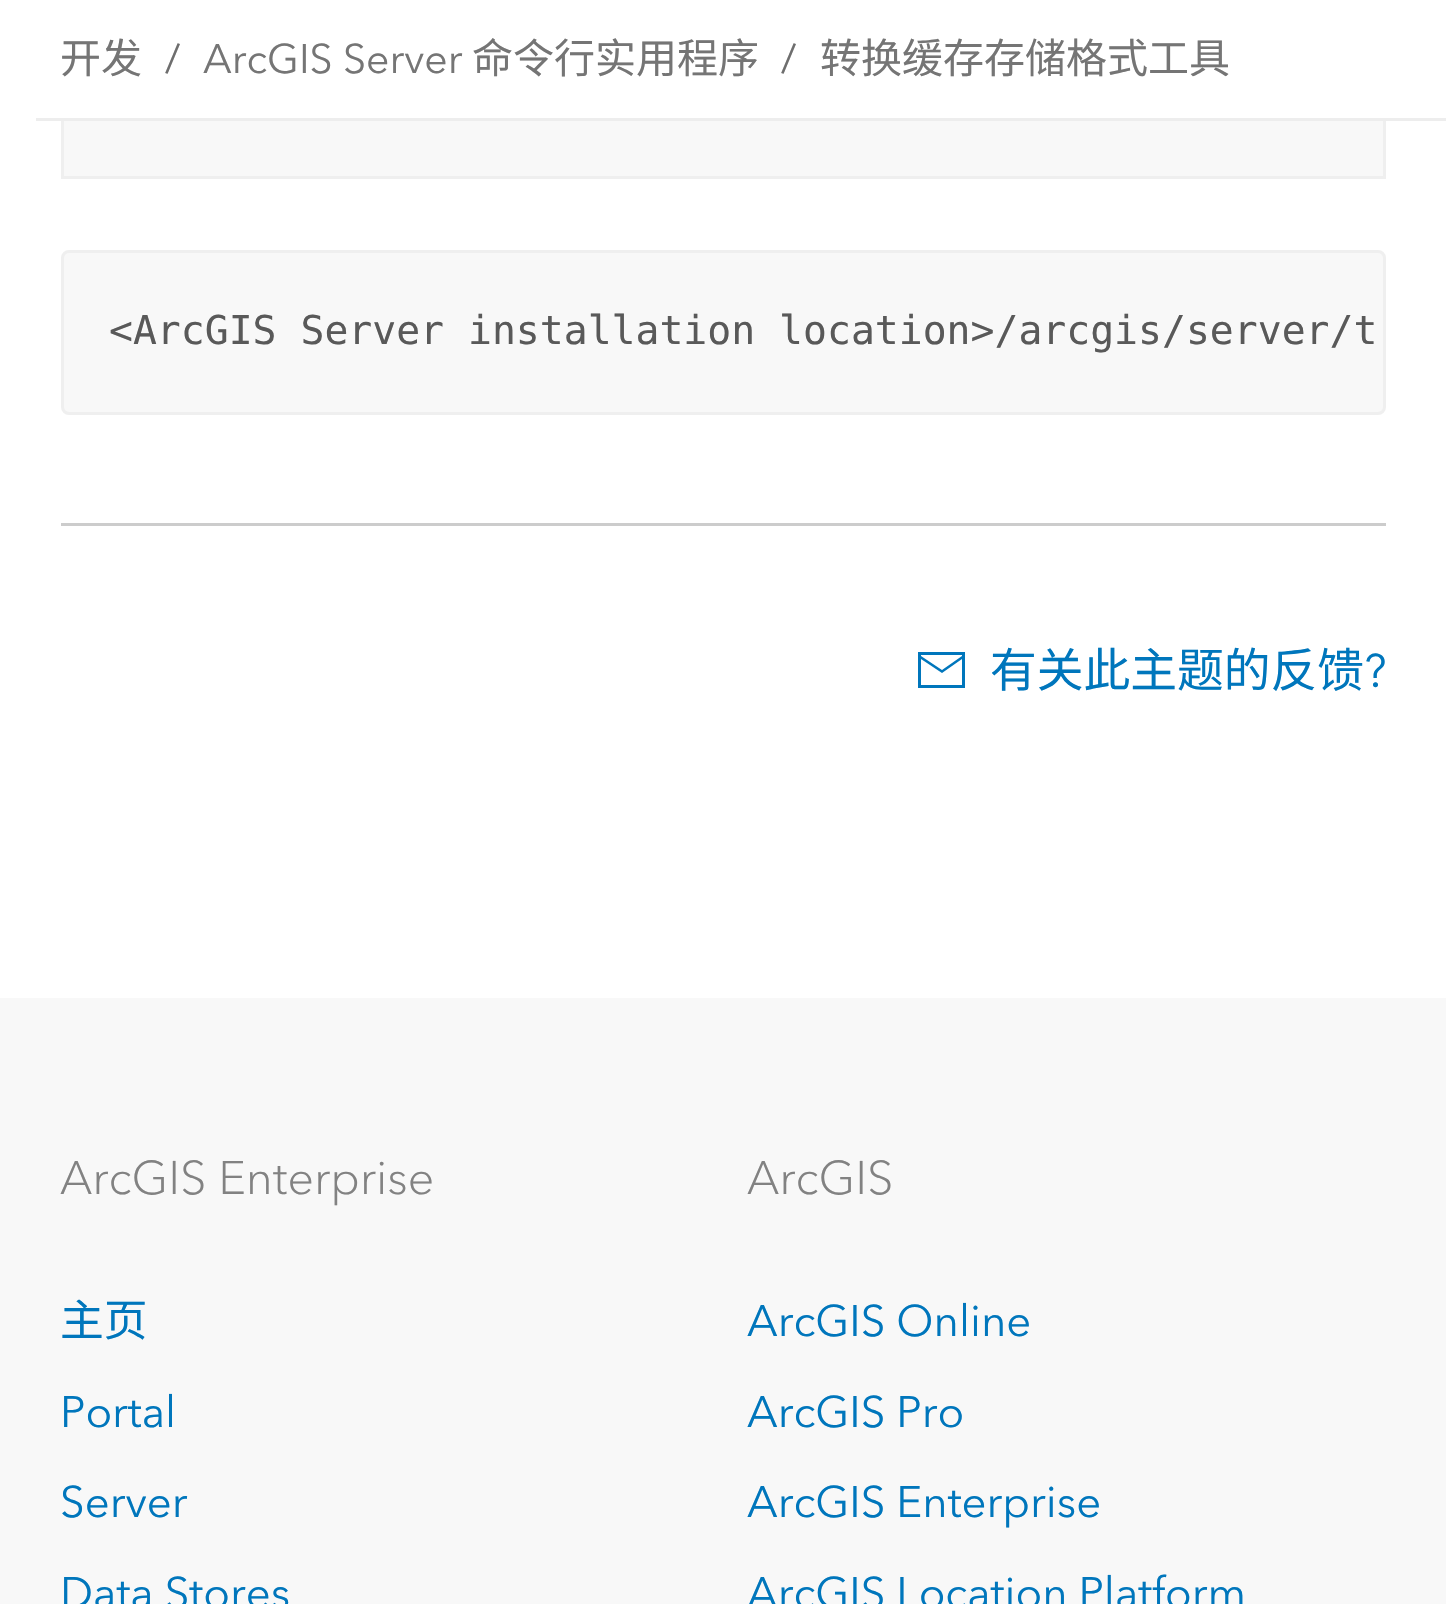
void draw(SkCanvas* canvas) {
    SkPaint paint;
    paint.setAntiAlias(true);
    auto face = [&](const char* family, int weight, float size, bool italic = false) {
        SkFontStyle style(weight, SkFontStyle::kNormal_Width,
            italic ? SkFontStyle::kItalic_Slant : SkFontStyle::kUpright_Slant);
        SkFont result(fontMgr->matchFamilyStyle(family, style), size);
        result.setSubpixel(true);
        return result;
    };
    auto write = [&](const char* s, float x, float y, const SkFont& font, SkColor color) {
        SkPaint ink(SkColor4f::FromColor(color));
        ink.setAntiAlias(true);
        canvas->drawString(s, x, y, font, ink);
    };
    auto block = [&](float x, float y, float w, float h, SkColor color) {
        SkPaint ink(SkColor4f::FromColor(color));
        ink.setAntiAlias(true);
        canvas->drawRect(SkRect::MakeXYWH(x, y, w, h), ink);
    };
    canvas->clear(SK_ColorWHITE);
    block(64, 121, 1319, 55, SkColorSetRGB(248, 248, 248));
    paint.setStyle(SkPaint::kStroke_Style);
    paint.setStrokeWidth(3);
    paint.setColor(SkColorSetRGB(239, 239, 239));
    canvas->drawRect(SkRect::MakeXYWH(62.5f, -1.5f, 1322, 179), paint);
    block(61, 0, 1325, 118, SK_ColorWHITE);
    block(36, 118, 1410, 3, SkColorSetRGB(237, 237, 237));
    auto kFont1 = face("Noto Sans CJK SC", 400, 41);
    write("开发", 60, 73, kFont1, SkColorSetRGB(117, 117, 117));
    auto kFont2 = face("Avenir Next", 400, 41);
    write("/", 165, 73, kFont2, SkColorSetRGB(110, 110, 110));
    write("ArcGIS Server", 203, 73, kFont2, SkColorSetRGB(117, 117, 117));
    write("命令行实用程序", 472, 73, kFont1, SkColorSetRGB(117, 117, 117));
    write("/", 781, 73, kFont2, SkColorSetRGB(110, 110, 110));
    write("转换缓存存储格式工具", 820, 73, kFont1, SkColorSetRGB(117, 117, 117));
    paint.setStyle(SkPaint::kFill_Style);
    paint.setColor(SkColorSetRGB(248, 248, 248));
    canvas->drawRoundRect(SkRect::MakeXYWH(62.5f, 251.5f, 1322, 162), 6.5f, 6.5f, paint);
    paint.setStyle(SkPaint::kStroke_Style);
    paint.setColor(SkColorSetRGB(239, 239, 239));
    canvas->drawRoundRect(SkRect::MakeXYWH(62.5f, 251.5f, 1322, 162), 6.5f, 6.5f, paint);
    auto kFont3 = face("DejaVu Sans Mono", 400, 39.75f);
    write("<ArcGIS Server installation location>/arcgis/server/t", 109, 344, kFont3, SkColorSetRGB(89, 89, 89));
    block(61, 523, 1325, 3, SkColorSetRGB(204, 204, 204));
    paint.setStyle(SkPaint::kFill_Style);
    paint.setColor(SkColorSetRGB(0, 118, 188));
    canvas->drawPath(SkPathBuilder().moveTo(918, 652).lineTo(965, 652).lineTo(965, 688).lineTo(918, 688).close().moveTo(962, 655).lineTo(921, 655).lineTo(921, 656).lineTo(942, 670).lineTo(962, 656).close().moveTo(921, 685).lineTo(962, 685).lineTo(962, 659).lineTo(942, 673).lineTo(921, 659).close().detach(), paint);
    auto kFont4 = face("Noto Sans CJK SC", 400, 46.75f);
    write("有关此主题的反馈", 990, 687, kFont4, SkColorSetRGB(0, 118, 188));
    auto kFont5 = face("Avenir Next", 400, 46.75f);
    write("?", 1364, 687, kFont5, SkColorSetRGB(0, 118, 188));
    block(0, 998, 1446, 606, SkColorSetRGB(248, 248, 248));
    auto kFont6 = face("Avenir Next", 300, 46.75f);
    write("ArcGIS Enterprise", 60, 1194, kFont6, SkColorSetRGB(130, 130, 130));
    auto kFont7 = face("Noto Sans CJK SC", 400, 43.75f);
    write("主页", 60, 1336, kFont7, SkColorSetRGB(0, 118, 188));
    auto kFont8 = face("Avenir Next", 400, 43.75f);
    write("Portal", 60, 1427, kFont8, SkColorSetRGB(0, 118, 188));
    write("Server", 60, 1517, kFont8, SkColorSetRGB(0, 118, 188));
    write("Data Stores", 60, 1608, kFont8, SkColorSetRGB(0, 118, 188));
    write("ArcGIS", 747, 1194, kFont6, SkColorSetRGB(130, 130, 130));
    write("ArcGIS Online", 747, 1336, kFont8, SkColorSetRGB(0, 118, 188));
    write("ArcGIS Pro", 747, 1427, kFont8, SkColorSetRGB(0, 118, 188));
    write("ArcGIS Enterprise", 747, 1517, kFont8, SkColorSetRGB(0, 118, 188));
    write("ArcGIS Location Platform", 747, 1608, kFont8, SkColorSetRGB(0, 118, 188));
}
